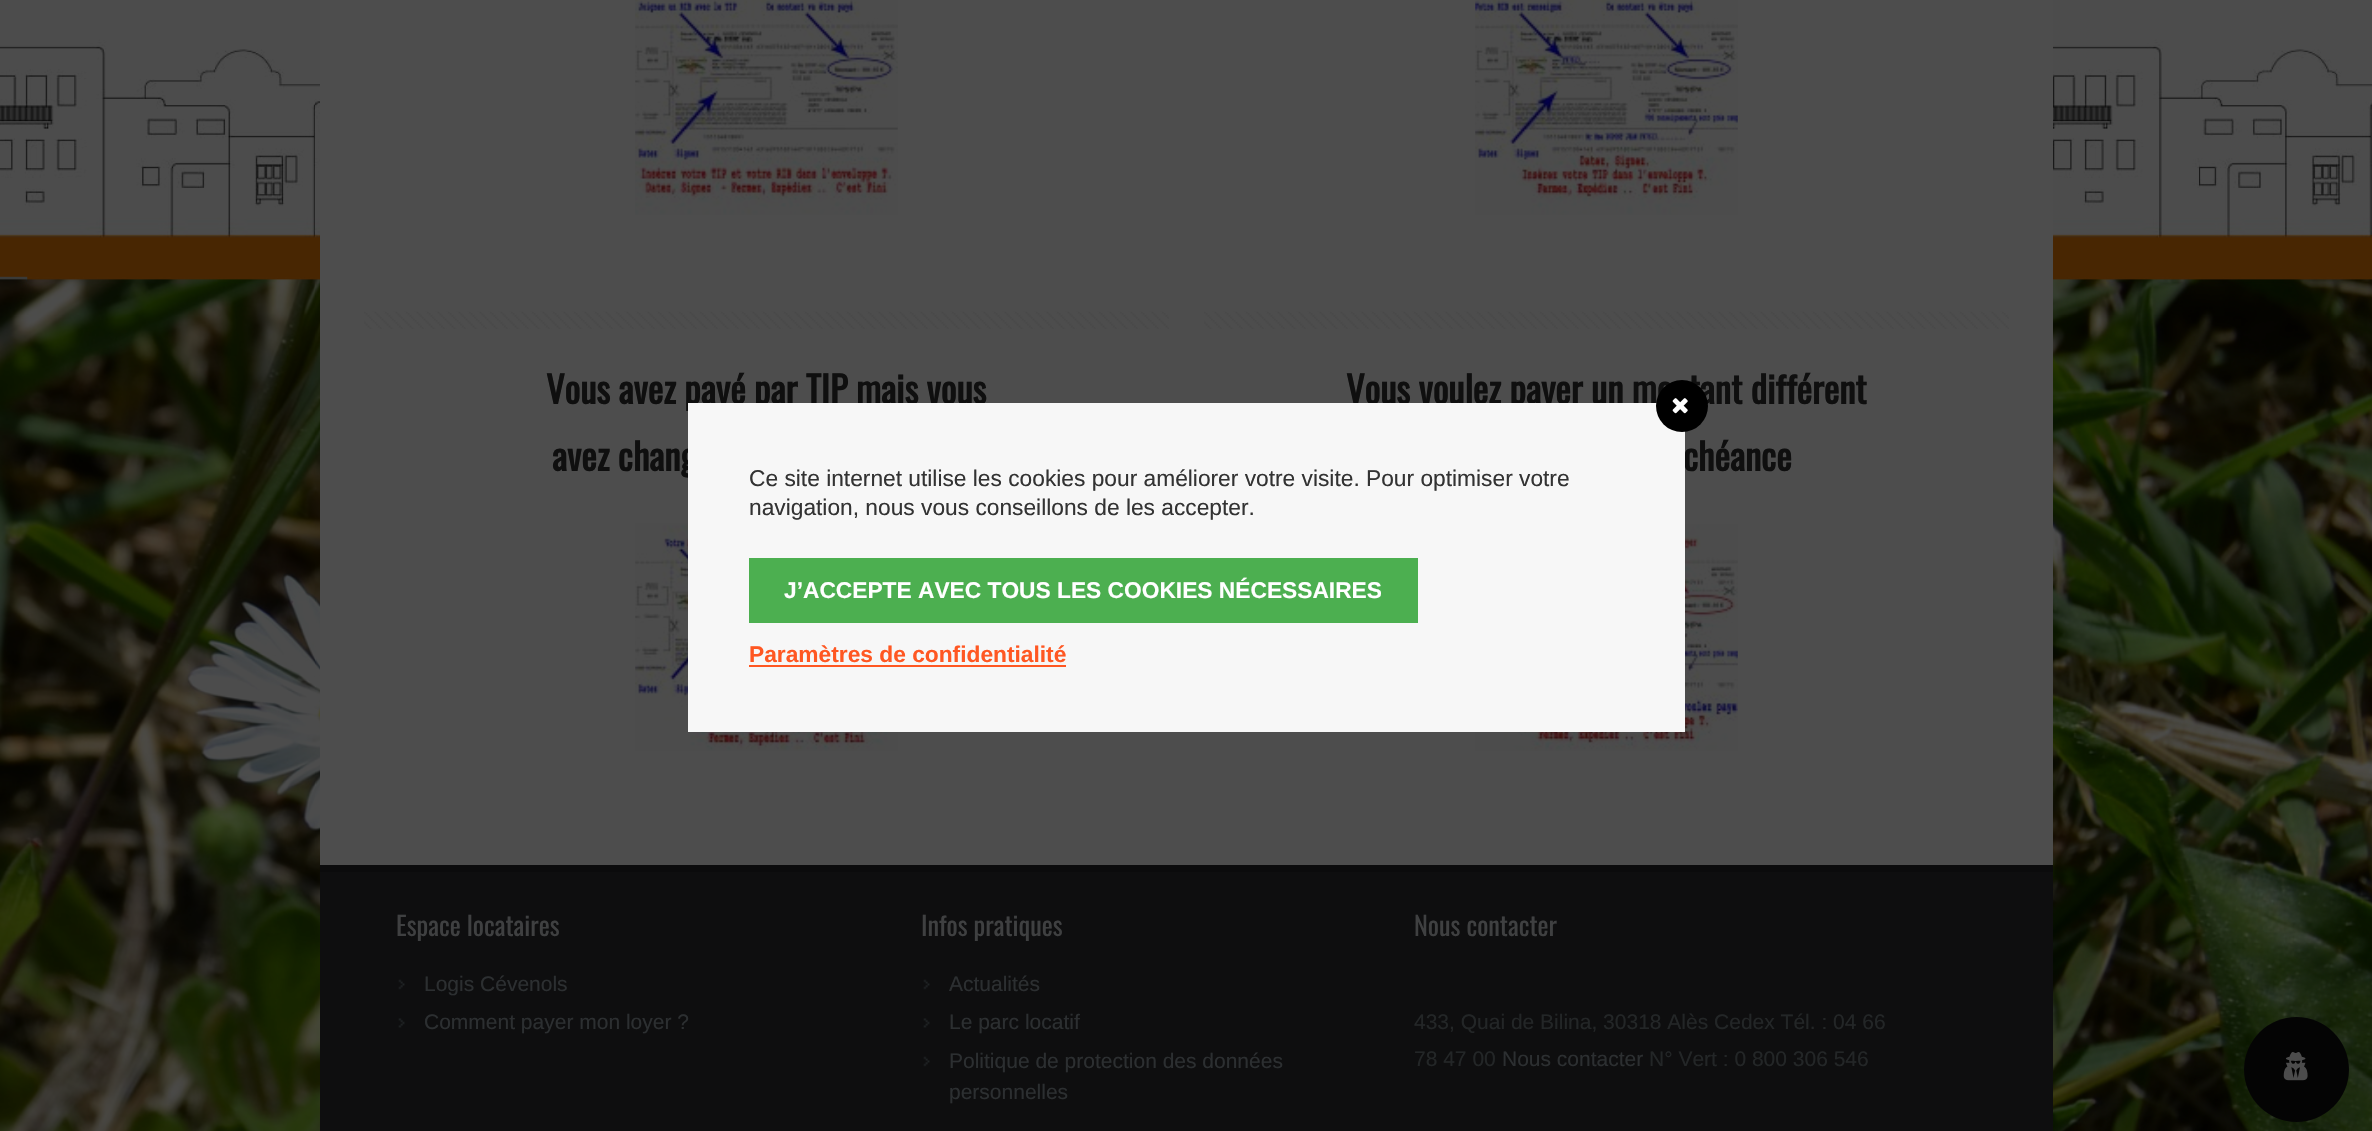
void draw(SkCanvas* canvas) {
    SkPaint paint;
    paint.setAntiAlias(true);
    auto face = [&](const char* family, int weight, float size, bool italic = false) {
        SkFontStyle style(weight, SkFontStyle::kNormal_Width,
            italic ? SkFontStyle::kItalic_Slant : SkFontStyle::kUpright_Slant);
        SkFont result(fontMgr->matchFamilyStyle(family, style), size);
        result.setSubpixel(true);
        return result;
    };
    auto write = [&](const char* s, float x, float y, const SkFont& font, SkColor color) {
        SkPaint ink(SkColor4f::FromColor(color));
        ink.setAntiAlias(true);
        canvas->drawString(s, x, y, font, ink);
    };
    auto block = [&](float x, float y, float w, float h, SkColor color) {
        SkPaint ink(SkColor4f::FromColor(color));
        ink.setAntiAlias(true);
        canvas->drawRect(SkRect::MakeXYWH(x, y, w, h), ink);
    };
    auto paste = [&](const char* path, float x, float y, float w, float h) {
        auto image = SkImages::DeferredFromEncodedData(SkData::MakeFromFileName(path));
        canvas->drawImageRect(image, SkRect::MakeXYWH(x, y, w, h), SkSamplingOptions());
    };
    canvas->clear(SK_ColorWHITE);
    paste("pic1.png", 0, 0, 2372, 1131);
    block(320, 0, 1733, 865, SkColorSetRGB(77, 77, 77));
    paste("pic2.png", 635, 0, 263, 215);
    paste("pic3.png", 1475, 0, 263, 215);
    paste("pic4.png", 364, 311, 805, 18);
    auto kFont1 = face("Oswald", 700, 36.75f);
    write("Vous avez payé par TIP mais vous", 546, 404, kFont1, SkColorSetRGB(15, 15, 15));
    write("avez chang", 552, 471, kFont1, SkColorSetRGB(15, 15, 15));
    paste("pic5.png", 635, 523, 263, 228);
    paste("pic6.png", 1204, 311, 805, 18);
    write("Vous voulez payer un montant différent", 1346, 404, kFont1, SkColorSetRGB(15, 15, 15));
    write("chéance", 1683, 471, kFont1, SkColorSetRGB(15, 15, 15));
    paste("pic7.png", 1475, 524, 263, 227);
    block(320, 872, 1733, 259, SkColorSetRGB(14, 14, 15));
    block(320, 865, 1733, 7, SkColorSetRGB(11, 11, 12));
    auto kFont2 = face("Oswald", 400, 26.25f);
    write("Espace locataires", 396, 936, kFont2, SkColorSetRGB(63, 64, 65));
    paste("pic8.png", 398, 979, 7, 11);
    auto kFont3 = face("Liberation Sans", 400, 21);
    write("Logis Cévenols", 424, 991, kFont3, SkColorSetRGB(44, 47, 49));
    paste("pic9.png", 398, 1018, 7, 10);
    write("Comment payer mon loyer ?", 424, 1029, kFont3, SkColorSetRGB(44, 47, 49));
    write("Infos pratiques", 921, 936, kFont2, SkColorSetRGB(63, 64, 65));
    paste("pic8.png", 923, 979, 7, 11);
    write("Actualités", 949, 991, kFont3, SkColorSetRGB(44, 47, 49));
    paste("pic9.png", 923, 1018, 7, 10);
    write("Le parc locatif", 949, 1029, kFont3, SkColorSetRGB(44, 47, 49));
    paste("pic8.png", 923, 1056, 7, 11);
    write("Politique de protection des données", 949, 1068, kFont3, SkColorSetRGB(44, 47, 49));
    write("personnelles", 949, 1099, kFont3, SkColorSetRGB(44, 47, 49));
    write("Nous contacter", 1414, 936, kFont2, SkColorSetRGB(63, 64, 65));
    write("433, Quai de Bilina, 30318 Alès Cedex Tél. : 04 66", 1414, 1029, kFont3, SkColorSetRGB(35, 38, 39));
    write("78 47 00", 1414, 1066, kFont3, SkColorSetRGB(35, 38, 39));
    write("Nous contacter", 1502, 1066, kFont3, SkColorSetRGB(44, 47, 49));
    write("N° Vert : 0 800 306 546", 1649, 1066, kFont3, SkColorSetRGB(35, 38, 39));
    block(688, 403, 997, 329, SkColorSetRGB(247, 247, 247));
    paint.setColor(SK_ColorBLACK);
    canvas->drawCircle(1682, 406, 26, paint);
    paste("pic10.png", 1672, 398, 16, 16);
    auto kFont4 = face("Liberation Sans", 400, 22.75f);
    write("Ce site internet utilise les cookies pour améliorer votre visite. Pour optimiser votre", 749, 486, kFont4, SkColorSetRGB(51, 51, 51));
    write("navigation, nous vous conseillons de les accepter.", 749, 515, kFont4, SkColorSetRGB(51, 51, 51));
    block(749, 558, 669, 65, SkColorSetRGB(76, 175, 80));
    auto kFont5 = face("Liberation Sans", 700, 22.75f);
    write("J’ACCEPTE AVEC TOUS LES COOKIES NÉCESSAIRES", 784, 598, kFont5, SK_ColorWHITE);
    write("Paramètres de confidentialité", 749, 662, kFont5, SkColorSetRGB(255, 87, 34));
    block(749, 665, 317, 2, SkColorSetRGB(255, 87, 34));
    paint.setColor(SkColorSetRGB(4, 4, 4));
    canvas->drawCircle(2296.5f, 1069.5f, 52.5f, paint);
    paste("pic11.png", 2283, 1052, 25, 29);
}
